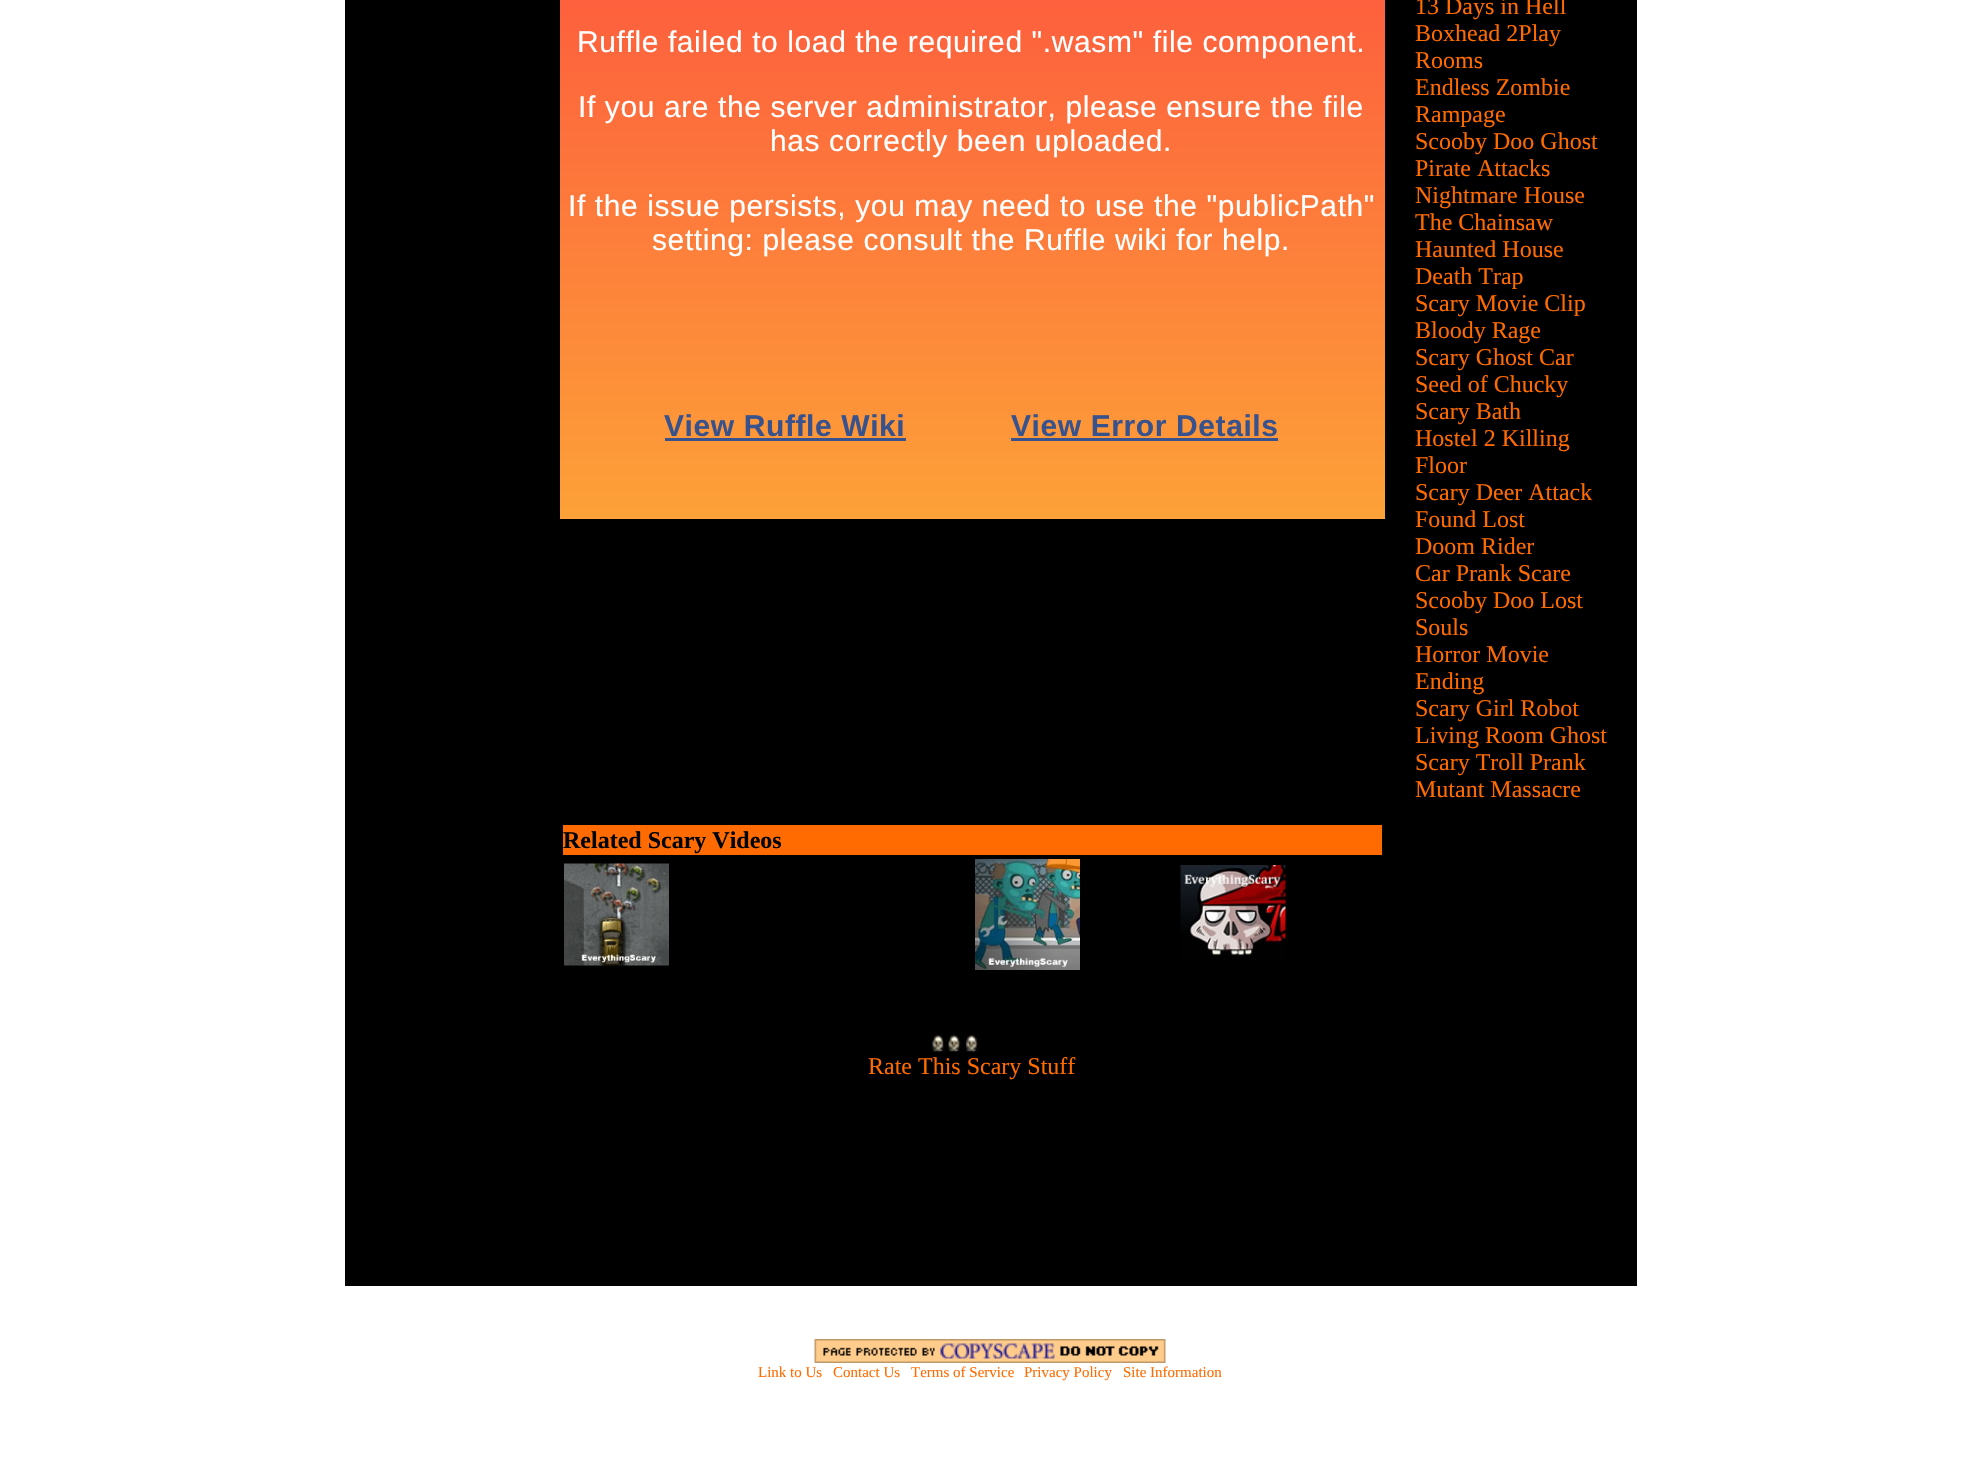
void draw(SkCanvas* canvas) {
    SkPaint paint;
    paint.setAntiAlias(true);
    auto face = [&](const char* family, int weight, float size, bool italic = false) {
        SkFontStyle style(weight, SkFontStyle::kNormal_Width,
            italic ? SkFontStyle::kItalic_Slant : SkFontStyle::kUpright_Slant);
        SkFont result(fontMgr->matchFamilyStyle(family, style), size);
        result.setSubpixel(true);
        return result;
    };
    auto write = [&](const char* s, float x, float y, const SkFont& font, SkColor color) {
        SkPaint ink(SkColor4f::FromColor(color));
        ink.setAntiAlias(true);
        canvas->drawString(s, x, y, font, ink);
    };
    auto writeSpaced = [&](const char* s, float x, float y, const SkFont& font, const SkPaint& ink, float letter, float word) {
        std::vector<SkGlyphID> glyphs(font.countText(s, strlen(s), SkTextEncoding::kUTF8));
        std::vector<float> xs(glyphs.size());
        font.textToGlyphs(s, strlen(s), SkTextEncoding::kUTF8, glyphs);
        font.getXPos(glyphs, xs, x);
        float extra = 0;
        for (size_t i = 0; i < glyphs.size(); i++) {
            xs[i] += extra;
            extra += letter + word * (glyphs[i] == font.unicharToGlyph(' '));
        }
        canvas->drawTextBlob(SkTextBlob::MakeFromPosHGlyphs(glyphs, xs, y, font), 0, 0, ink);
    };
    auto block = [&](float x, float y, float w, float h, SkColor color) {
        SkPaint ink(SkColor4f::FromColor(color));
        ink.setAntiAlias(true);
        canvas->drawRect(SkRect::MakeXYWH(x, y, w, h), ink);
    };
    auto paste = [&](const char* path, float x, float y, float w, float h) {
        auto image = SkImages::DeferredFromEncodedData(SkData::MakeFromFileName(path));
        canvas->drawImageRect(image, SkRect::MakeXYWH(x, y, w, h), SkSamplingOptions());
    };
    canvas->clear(SK_ColorWHITE);
    block(345, 0, 1292, 1286, SK_ColorBLACK);
    {
        const SkColor colors[] = {SkColorSetRGB(253, 58, 64), SkColorSetRGB(253, 161, 56)};
        const float stops[] = {0, 1};
        const SkPoint ends[] = {{972, -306}, {972, 519}};
        paint.setShader(SkGradientShader::MakeLinear(ends, colors, stops, 2, SkTileMode::kClamp));
        paint.setAlpha(255);
    }
    canvas->drawRect(SkRect::MakeXYWH(560, 0, 825, 519), paint);
    auto kFont1 = face("Liberation Sans", 400, 30);
    paint.setShader(nullptr);
    paint.setColor(SK_ColorWHITE);
    writeSpaced("Ruffle failed to load the required \".wasm\" file component.", 577, 52, kFont1, paint, 0.6f, 0);
    writeSpaced("If you are the server administrator, please ensure the file", 578, 117, kFont1, paint, 0.6f, 0);
    writeSpaced("has correctly been uploaded.", 770, 151, kFont1, paint, 0.6f, 0);
    writeSpaced("If the issue persists, you may need to use the \"publicPath\"", 568, 216, kFont1, paint, 0.6f, 0);
    writeSpaced("setting: please consult the Ruffle wiki for help.", 652, 250, kFont1, paint, 0.6f, 0);
    auto kFont2 = face("Liberation Sans", 700, 30);
    paint.setColor(SkColorSetRGB(55, 82, 140));
    writeSpaced("View Ruffle Wiki", 664, 436, kFont2, paint, 0.6f, 0);
    block(665, 438, 241, 3, SkColorSetRGB(55, 82, 140));
    writeSpaced("View Error Details", 1011, 436, kFont2, paint, 0.6f, 0);
    block(1011, 438, 267, 3, SkColorSetRGB(55, 82, 140));
    block(563, 825, 819, 30, SkColorSetRGB(255, 107, 0));
    auto kFont3 = face("Liberation Serif", 700, 24);
    write("Related Scary Videos", 563, 848, kFont3, SK_ColorBLACK);
    paste("pic1.png", 564, 863, 105, 103);
    paste("pic2.png", 975, 859, 105, 111);
    paste("pic3.png", 1180, 865, 106, 94);
    paste("pic4.png", 931, 1034, 50, 19);
    auto kFont4 = face("Liberation Serif", 400, 24);
    write("Rate This Scary Stuff", 868, 1074, kFont4, SkColorSetRGB(255, 107, 0));
    write("13 Days in Hell", 1415, 14, kFont4, SkColorSetRGB(255, 107, 0));
    write("Boxhead 2Play", 1415, 41, kFont4, SkColorSetRGB(255, 107, 0));
    write("Rooms", 1415, 68, kFont4, SkColorSetRGB(255, 107, 0));
    write("Endless Zombie", 1415, 95, kFont4, SkColorSetRGB(255, 107, 0));
    write("Rampage", 1415, 122, kFont4, SkColorSetRGB(255, 107, 0));
    write("Scooby Doo Ghost", 1415, 149, kFont4, SkColorSetRGB(255, 107, 0));
    write("Pirate Attacks", 1415, 176, kFont4, SkColorSetRGB(255, 107, 0));
    write("Nightmare House", 1415, 203, kFont4, SkColorSetRGB(255, 107, 0));
    write("The Chainsaw", 1415, 230, kFont4, SkColorSetRGB(255, 107, 0));
    write("Haunted House", 1415, 257, kFont4, SkColorSetRGB(255, 107, 0));
    write("Death Trap", 1415, 284, kFont4, SkColorSetRGB(255, 107, 0));
    write("Scary Movie Clip", 1415, 311, kFont4, SkColorSetRGB(255, 107, 0));
    write("Bloody Rage", 1415, 338, kFont4, SkColorSetRGB(255, 107, 0));
    write("Scary Ghost Car", 1415, 365, kFont4, SkColorSetRGB(255, 107, 0));
    write("Seed of Chucky", 1415, 392, kFont4, SkColorSetRGB(255, 107, 0));
    write("Scary Bath", 1415, 419, kFont4, SkColorSetRGB(255, 107, 0));
    write("Hostel 2 Killing", 1415, 446, kFont4, SkColorSetRGB(255, 107, 0));
    write("Floor", 1415, 473, kFont4, SkColorSetRGB(255, 107, 0));
    write("Scary Deer Attack", 1415, 500, kFont4, SkColorSetRGB(255, 107, 0));
    write("Found Lost", 1415, 527, kFont4, SkColorSetRGB(255, 107, 0));
    write("Doom Rider", 1415, 554, kFont4, SkColorSetRGB(255, 107, 0));
    write("Car Prank Scare", 1415, 581, kFont4, SkColorSetRGB(255, 107, 0));
    write("Scooby Doo Lost", 1415, 608, kFont4, SkColorSetRGB(255, 107, 0));
    write("Souls", 1415, 635, kFont4, SkColorSetRGB(255, 107, 0));
    write("Horror Movie", 1415, 662, kFont4, SkColorSetRGB(255, 107, 0));
    write("Ending", 1415, 689, kFont4, SkColorSetRGB(255, 107, 0));
    write("Scary Girl Robot", 1415, 716, kFont4, SkColorSetRGB(255, 107, 0));
    write("Living Room Ghost", 1415, 743, kFont4, SkColorSetRGB(255, 107, 0));
    write("Scary Troll Prank", 1415, 770, kFont4, SkColorSetRGB(255, 107, 0));
    write("Mutant Massacre", 1415, 797, kFont4, SkColorSetRGB(255, 107, 0));
    paste("pic5.png", 814, 1339, 352, 24);
    auto kFont5 = face("Liberation Serif", 400, 15);
    write("Link to Us", 758, 1377, kFont5, SkColorSetRGB(255, 107, 0));
    write("Contact Us", 833, 1377, kFont5, SkColorSetRGB(255, 107, 0));
    write("Terms of Service", 911, 1377, kFont5, SkColorSetRGB(255, 107, 0));
    write("Privacy Policy", 1024, 1377, kFont5, SkColorSetRGB(255, 107, 0));
    write("Site Information", 1123, 1377, kFont5, SkColorSetRGB(255, 107, 0));
}
